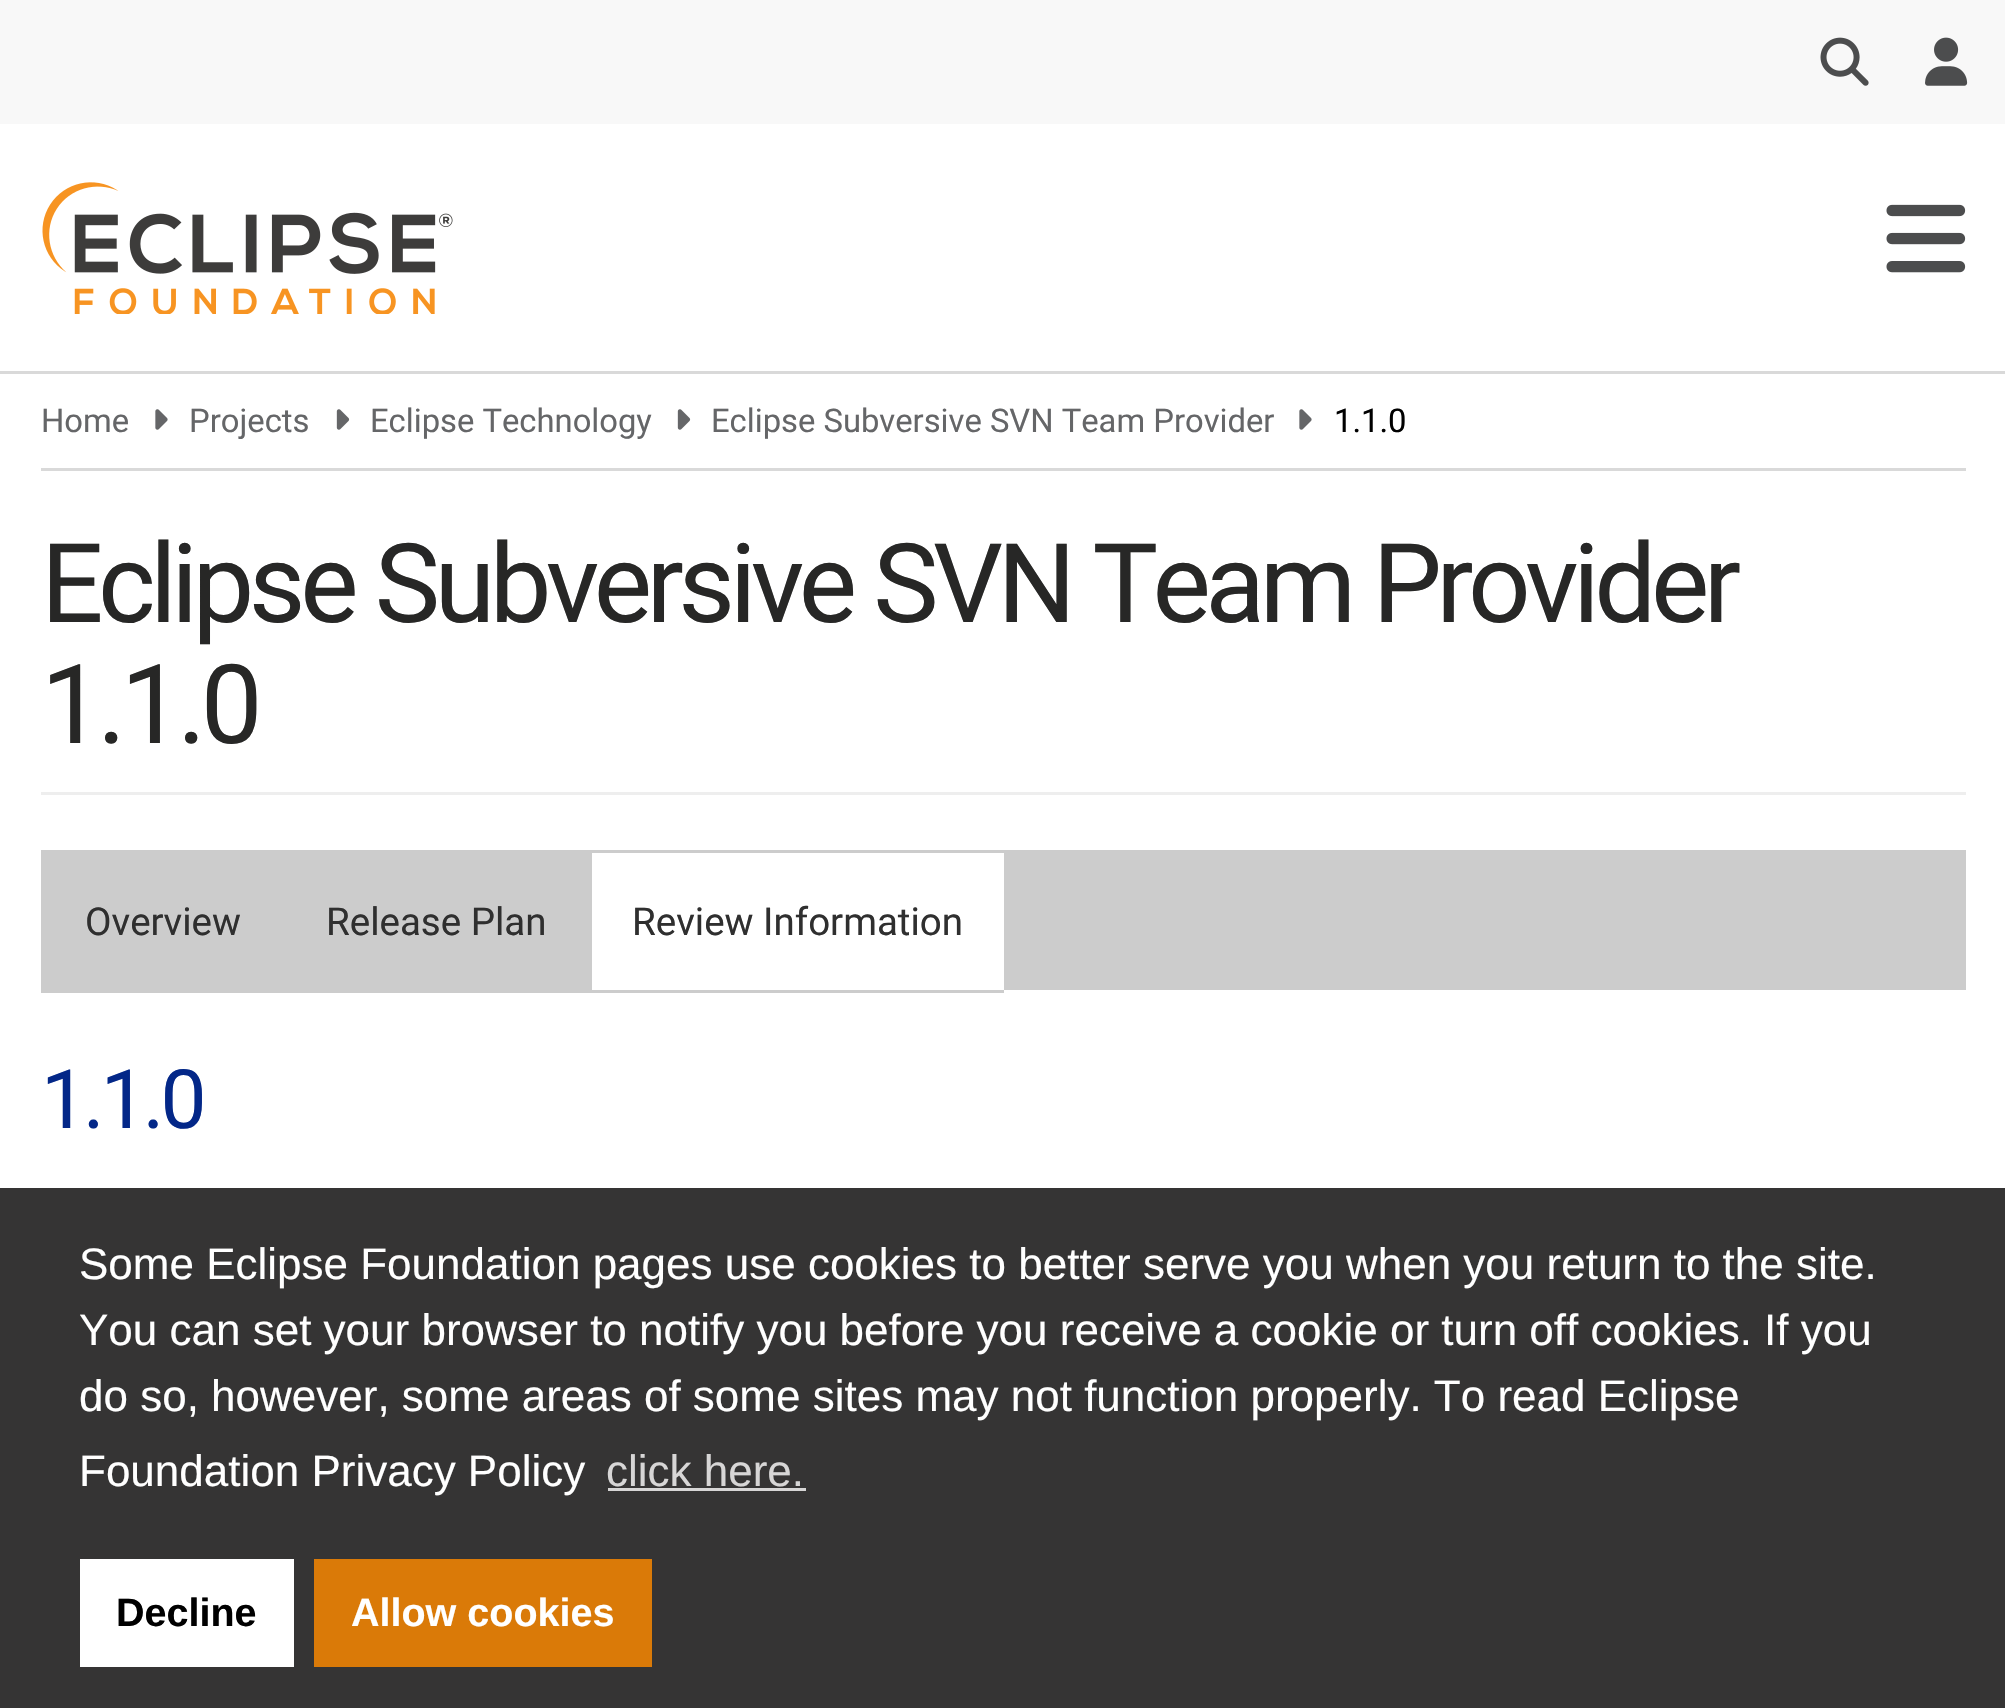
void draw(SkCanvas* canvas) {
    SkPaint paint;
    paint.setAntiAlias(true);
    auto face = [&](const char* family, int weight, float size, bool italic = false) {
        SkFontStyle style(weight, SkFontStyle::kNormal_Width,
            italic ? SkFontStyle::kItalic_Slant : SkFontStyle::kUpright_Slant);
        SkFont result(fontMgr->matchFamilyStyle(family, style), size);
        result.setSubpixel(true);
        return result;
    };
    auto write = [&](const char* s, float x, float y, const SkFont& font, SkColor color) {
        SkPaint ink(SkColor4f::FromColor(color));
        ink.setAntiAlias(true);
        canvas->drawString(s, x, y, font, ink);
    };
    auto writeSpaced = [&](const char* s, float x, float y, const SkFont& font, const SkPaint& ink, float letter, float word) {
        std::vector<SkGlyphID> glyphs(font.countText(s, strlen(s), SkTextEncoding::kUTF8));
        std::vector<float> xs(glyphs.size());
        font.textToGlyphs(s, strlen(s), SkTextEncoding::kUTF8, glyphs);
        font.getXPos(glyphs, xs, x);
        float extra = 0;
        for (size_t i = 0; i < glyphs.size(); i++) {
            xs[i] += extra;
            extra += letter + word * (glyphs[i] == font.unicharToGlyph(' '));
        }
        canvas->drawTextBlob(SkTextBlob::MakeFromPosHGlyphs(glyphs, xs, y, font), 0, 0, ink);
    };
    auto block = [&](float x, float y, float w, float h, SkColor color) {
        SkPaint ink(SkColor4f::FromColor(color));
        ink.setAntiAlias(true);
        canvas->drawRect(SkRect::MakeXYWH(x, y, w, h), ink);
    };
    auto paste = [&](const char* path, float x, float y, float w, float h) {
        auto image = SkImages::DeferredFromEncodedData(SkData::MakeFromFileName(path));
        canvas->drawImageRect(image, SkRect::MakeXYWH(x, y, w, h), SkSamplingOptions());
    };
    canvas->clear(SK_ColorWHITE);
    block(0, 0, 2005, 124, SkColorSetRGB(248, 248, 248));
    paste("pic1.png", 1820, 37, 49, 49);
    paste("pic2.png", 1925, 37, 43, 49);
    block(0, 371, 2005, 3, SkColorSetRGB(217, 217, 217));
    paste("pic3.png", 42, 182, 411, 132);
    paste("pic4.png", 1886, 204, 80, 69);
    block(41, 468, 1925, 3, SkColorSetRGB(217, 217, 217));
    auto kFont1 = face("Roboto", 400, 32.75f);
    write("Home", 41, 432, kFont1, SkColorSetRGB(101, 102, 104));
    paste("pic5.png", 155, 409, 13, 21);
    write("Projects", 189, 432, kFont1, SkColorSetRGB(101, 102, 104));
    paste("pic6.png", 336, 409, 14, 21);
    write("Eclipse Technology", 370, 432, kFont1, SkColorSetRGB(101, 102, 104));
    paste("pic6.png", 677, 409, 14, 21);
    write("Eclipse Subversive SVN Team Provider", 711, 432, kFont1, SkColorSetRGB(101, 102, 104));
    paste("pic5.png", 1299, 409, 13, 21);
    write("1.1.0", 1334, 432, kFont1, SK_ColorBLACK);
    block(41, 792, 1925, 3, SkColorSetRGB(238, 238, 238));
    auto kFont2 = face("Roboto", 400, 110);
    paint.setColor(SkColorSetRGB(39, 39, 38));
    writeSpaced("Eclipse Subversive SVN Team Provider", 41, 622, kFont2, paint, -5.5f, 0);
    writeSpaced("1.1.0", 41, 743, kFont2, paint, -5.5f, 0);
    block(1004, 850, 962, 140, SkColorSetRGB(204, 204, 204));
    block(41, 850, 548, 143, SkColorSetRGB(204, 204, 204));
    auto kFont3 = face("Roboto", 400, 38.5f);
    write("Overview", 85, 935, kFont3, SkColorSetRGB(47, 47, 47));
    write("Release Plan", 326, 935, kFont3, SkColorSetRGB(47, 47, 47));
    block(589, 850, 415, 3, SkColorSetRGB(204, 204, 204));
    block(589, 990, 415, 3, SkColorSetRGB(204, 204, 204));
    block(589, 850, 3, 143, SkColorSetRGB(204, 204, 204));
    write("Review Information", 632, 935, kFont3, SkColorSetRGB(47, 47, 47));
    auto kFont4 = face("Roboto", 400, 82);
    paint.setColor(SkColorSetRGB(3, 39, 136));
    writeSpaced("1.1.0", 41, 1128, kFont4, paint, -4, 0);
    block(0, 1188, 2005, 520, SkColorSetRGB(53, 52, 52));
    auto kFont5 = face("Liberation Sans", 400, 44);
    write("Some Eclipse Foundation pages use cookies to better serve you when you return to the site.", 79, 1279, kFont5, SK_ColorWHITE);
    write("You can set your browser to notify you before you receive a cookie or turn off cookies. If you", 79, 1345, kFont5, SK_ColorWHITE);
    write("do so, however, some areas of some sites may not function properly. To read Eclipse", 79, 1411, kFont5, SK_ColorWHITE);
    write("Foundation Privacy Policy", 79, 1486, kFont5, SK_ColorWHITE);
    write("click here.", 606, 1486, kFont5, SkColorSetRGB(215, 214, 214));
    block(608, 1488, 198, 3, SkColorSetRGB(215, 214, 214));
    block(80, 1559, 214, 108, SK_ColorWHITE);
    auto kFont6 = face("Liberation Sans", 700, 39.5f);
    write("Decline", 116, 1626, kFont6, SK_ColorBLACK);
    block(314, 1559, 338, 108, SkColorSetRGB(218, 122, 8));
    write("Allow cookies", 351, 1626, kFont6, SK_ColorWHITE);
}
